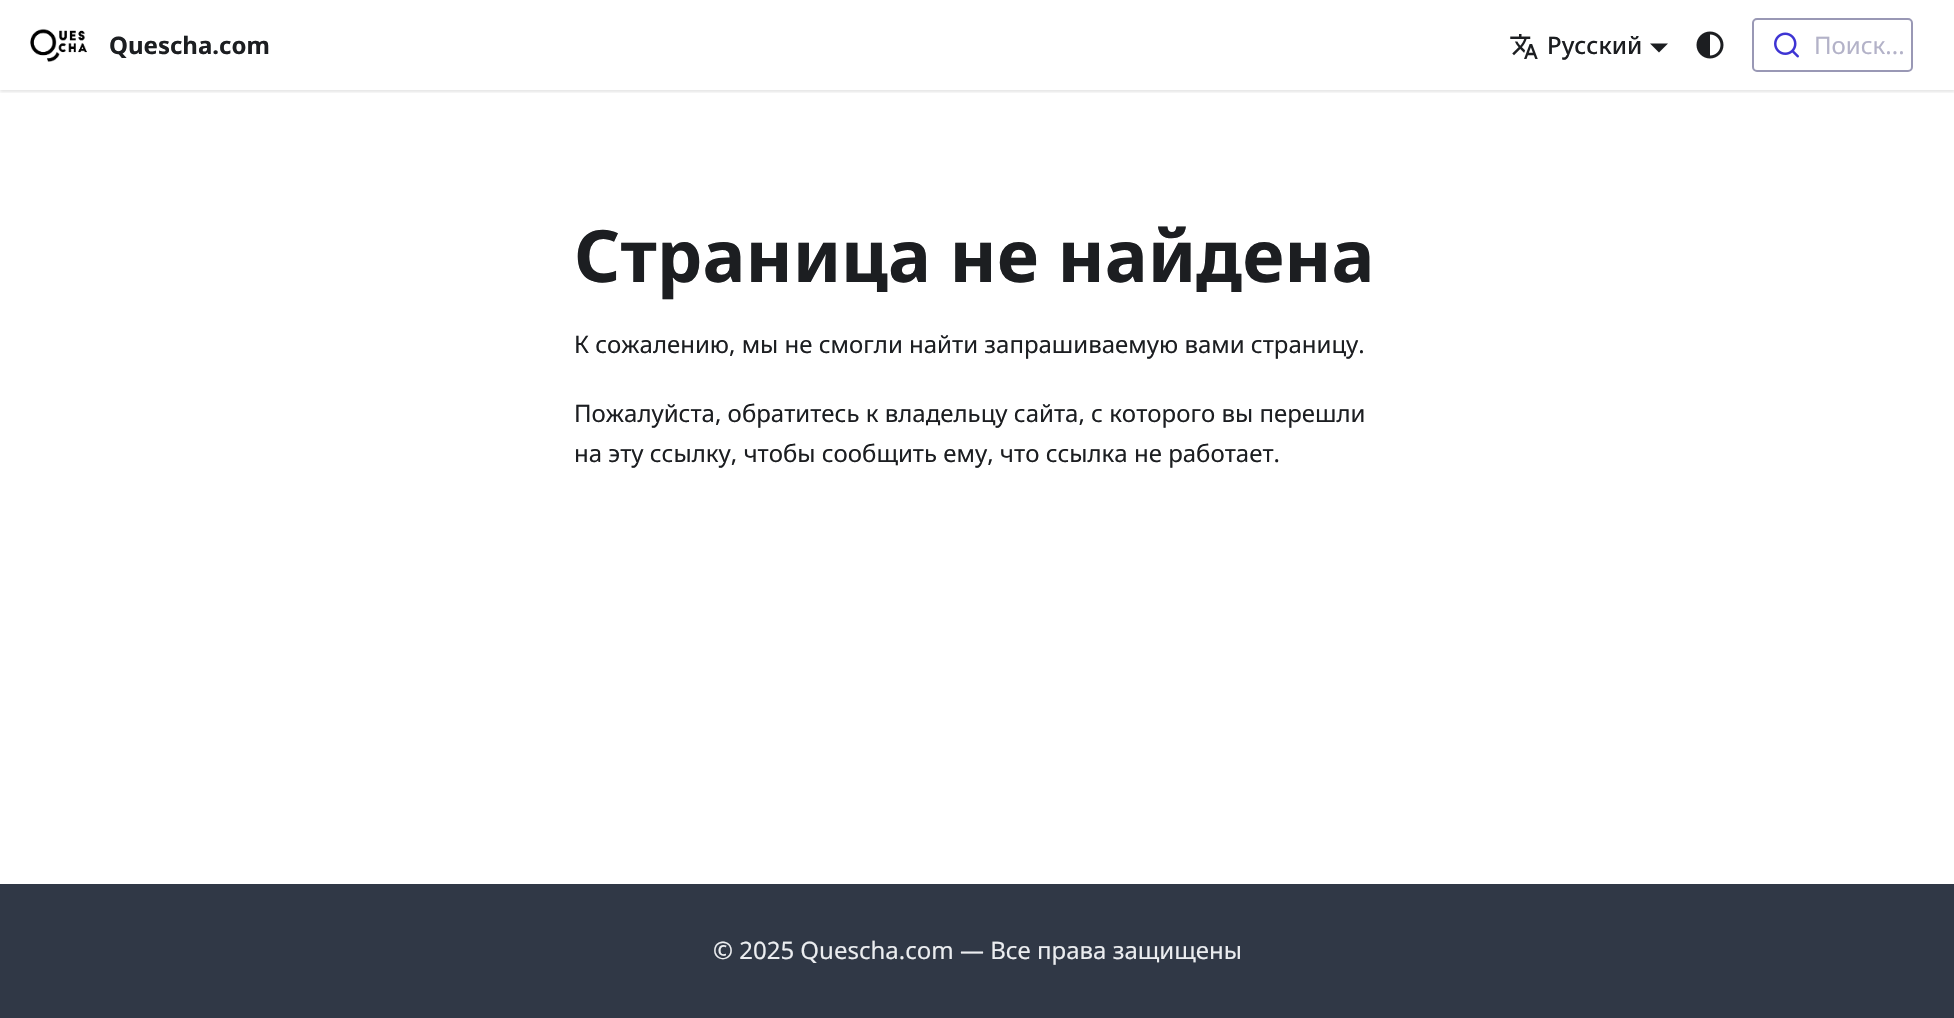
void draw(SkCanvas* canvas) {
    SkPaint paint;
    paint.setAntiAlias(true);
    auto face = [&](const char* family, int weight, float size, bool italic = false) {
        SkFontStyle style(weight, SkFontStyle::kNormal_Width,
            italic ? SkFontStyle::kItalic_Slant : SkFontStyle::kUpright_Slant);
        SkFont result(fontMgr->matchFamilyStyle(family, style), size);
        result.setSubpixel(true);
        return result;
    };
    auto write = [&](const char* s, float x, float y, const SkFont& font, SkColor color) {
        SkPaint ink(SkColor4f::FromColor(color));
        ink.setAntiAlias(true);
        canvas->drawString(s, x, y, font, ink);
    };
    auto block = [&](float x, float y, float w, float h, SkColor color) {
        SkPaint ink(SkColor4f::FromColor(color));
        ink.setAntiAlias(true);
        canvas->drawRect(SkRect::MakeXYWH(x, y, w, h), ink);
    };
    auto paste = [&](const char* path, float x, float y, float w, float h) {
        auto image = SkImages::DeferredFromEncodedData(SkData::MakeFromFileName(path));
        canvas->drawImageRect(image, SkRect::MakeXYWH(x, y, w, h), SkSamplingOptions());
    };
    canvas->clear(SK_ColorWHITE);
    canvas->save();
    canvas->clipRect(SkRect::MakeXYWH(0, 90, 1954, 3));
    paint.setColor(SkColorSetARGB(26, 0, 0, 0));
    paint.setMaskFilter(SkMaskFilter::MakeBlur(kNormal_SkBlurStyle, 1.5f));
    canvas->drawRect(SkRect::MakeXYWH(0, 2, 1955, 90), paint);
    paint.setMaskFilter(nullptr);
    canvas->restore();
    paste("pic1.png", 30, 28, 57, 34);
    auto kFont1 = face("Noto Sans", 700, 24);
    write("Quescha.com", 109, 54, kFont1, SkColorSetRGB(28, 30, 33));
    paste("pic2.png", 1510, 34, 28, 25);
    auto kFont2 = face("Noto Sans", 500, 24);
    write("Русский", 1547, 54, kFont2, SkColorSetRGB(28, 30, 33));
    paint.setColor(SkColorSetRGB(28, 30, 33));
    canvas->drawPath(SkPathBuilder().moveTo(1650, 43.5f).lineTo(1668, 43.5f).lineTo(1659, 52.5f).close().detach(), paint);
    paste("pic3.png", 1696, 31, 28, 28);
    paint.setStyle(SkPaint::kStroke_Style);
    paint.setStrokeWidth(2);
    paint.setColor(SkColorSetRGB(153, 152, 181));
    canvas->drawRoundRect(SkRect::MakeXYWH(1753, 19, 159, 52), 4, 4, paint);
    paste("pic4.png", 1774, 32, 25, 26);
    auto kFont3 = face("Noto Sans", 400, 24);
    write("Поиск...", 1814, 54, kFont3, SkColorSetRGB(179, 178, 200));
    auto kFont4 = face("Noto Sans", 700, 72);
    write("Страница не найдена", 574, 282, kFont4, SkColorSetRGB(28, 30, 33));
    write("К сожалению, мы не смогли найти запрашиваемую вами страницу.", 574, 353, kFont3, SkColorSetRGB(28, 30, 33));
    write("Пожалуйста, обратитесь к владельцу сайта, с которого вы перешли", 574, 422, kFont3, SkColorSetRGB(28, 30, 33));
    write("на эту ссылку, чтобы сообщить ему, что ссылка не работает.", 574, 462, kFont3, SkColorSetRGB(28, 30, 33));
    block(0, 884, 1954, 134, SkColorSetRGB(48, 56, 70));
    write("© 2025 Quescha.com — Все права защищены", 713, 959, kFont3, SkColorSetRGB(235, 237, 240));
}
